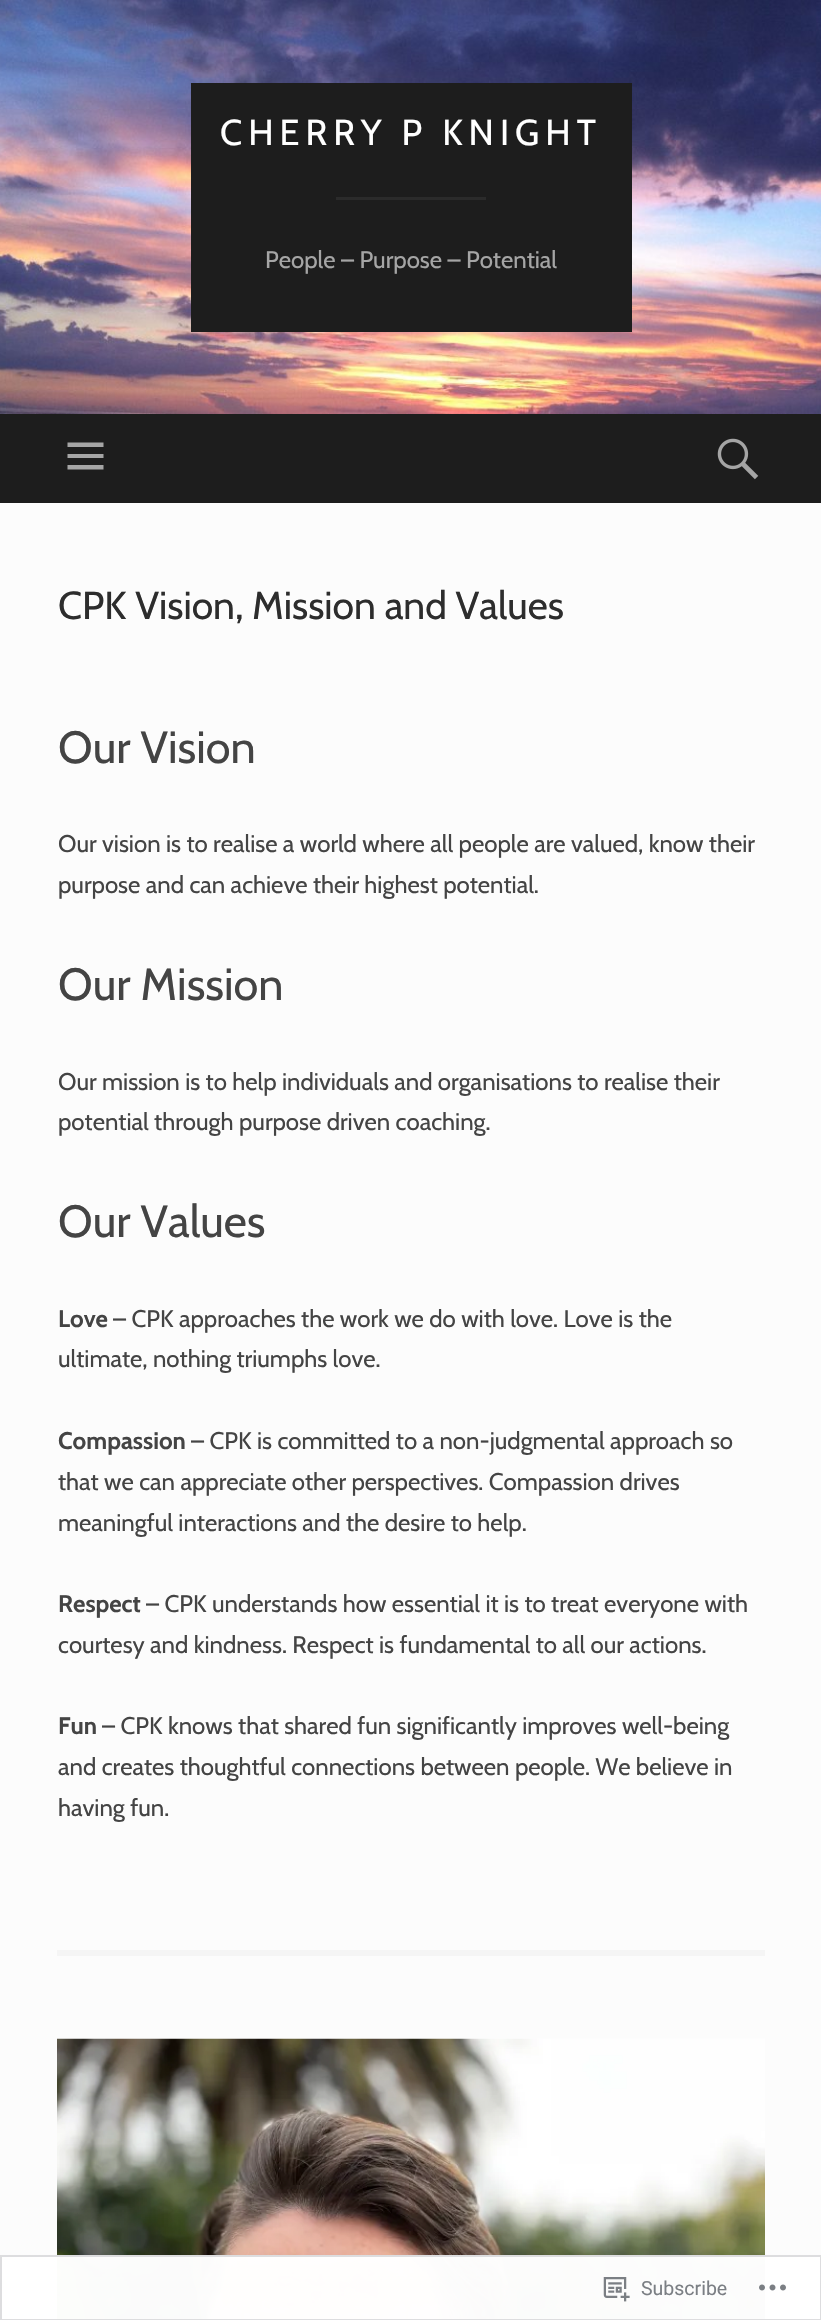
void draw(SkCanvas* canvas) {
    SkPaint paint;
    paint.setAntiAlias(true);
    auto face = [&](const char* family, int weight, float size, bool italic = false) {
        SkFontStyle style(weight, SkFontStyle::kNormal_Width,
            italic ? SkFontStyle::kItalic_Slant : SkFontStyle::kUpright_Slant);
        SkFont result(fontMgr->matchFamilyStyle(family, style), size);
        result.setSubpixel(true);
        return result;
    };
    auto write = [&](const char* s, float x, float y, const SkFont& font, SkColor color) {
        SkPaint ink(SkColor4f::FromColor(color));
        ink.setAntiAlias(true);
        canvas->drawString(s, x, y, font, ink);
    };
    auto writeSpaced = [&](const char* s, float x, float y, const SkFont& font, const SkPaint& ink, float letter, float word) {
        std::vector<SkGlyphID> glyphs(font.countText(s, strlen(s), SkTextEncoding::kUTF8));
        std::vector<float> xs(glyphs.size());
        font.textToGlyphs(s, strlen(s), SkTextEncoding::kUTF8, glyphs);
        font.getXPos(glyphs, xs, x);
        float extra = 0;
        for (size_t i = 0; i < glyphs.size(); i++) {
            xs[i] += extra;
            extra += letter + word * (glyphs[i] == font.unicharToGlyph(' '));
        }
        canvas->drawTextBlob(SkTextBlob::MakeFromPosHGlyphs(glyphs, xs, y, font), 0, 0, ink);
    };
    auto block = [&](float x, float y, float w, float h, SkColor color) {
        SkPaint ink(SkColor4f::FromColor(color));
        ink.setAntiAlias(true);
        canvas->drawRect(SkRect::MakeXYWH(x, y, w, h), ink);
    };
    auto paste = [&](const char* path, float x, float y, float w, float h) {
        auto image = SkImages::DeferredFromEncodedData(SkData::MakeFromFileName(path));
        canvas->drawImageRect(image, SkRect::MakeXYWH(x, y, w, h), SkSamplingOptions());
    };
    canvas->clear(SkColorSetRGB(252, 252, 252));
    paste("pic1.png", 0, 0, 821, 414);
    block(191, 83, 441, 249, SkColorSetRGB(29, 29, 29));
    auto kFont1 = face("Cabin", 400, 36);
    paint.setColor(SK_ColorWHITE);
    writeSpaced("CHERRY P KNIGHT", 220, 145, kFont1, paint, 6, 0);
    block(336, 197, 150, 3, SkColorSetRGB(43, 43, 43));
    auto kFont2 = face("Cabin", 400, 24);
    write("People – Purpose – Potential", 265, 268, kFont2, SkColorSetRGB(165, 165, 165));
    block(0, 414, 821, 89, SkColorSetRGB(29, 29, 29));
    paint.setColor(SkColorSetRGB(165, 165, 165));
    canvas->drawPath(SkPathBuilder().moveTo(67.5f, 469.5f).lineTo(67.5f, 465).lineTo(103.5f, 465).lineTo(103.5f, 469.5f).close().moveTo(67.5f, 442.5f).lineTo(103.5f, 442.5f).lineTo(103.5f, 447).lineTo(67.5f, 447).close().moveTo(67.5f, 458).lineTo(67.5f, 454).lineTo(103.5f, 454).lineTo(103.5f, 458).close().detach(), paint);
    paste("pic2.png", 717, 438, 42, 42);
    block(57, 1950, 708, 6, SkColorSetRGB(245, 245, 245));
    auto kFont3 = face("Cabin", 400, 39);
    write("CPK Vision, Mission and Values", 58, 619, kFont3, SkColorSetRGB(45, 45, 45));
    auto kFont4 = face("Cabin", 400, 45);
    write("Our Vision", 58, 763, kFont4, SkColorSetRGB(68, 68, 68));
    write("Our vision is to realise a world where all people are valued, know their", 58, 852, kFont2, SkColorSetRGB(68, 68, 68));
    write("purpose and can achieve their highest potential.", 58, 893, kFont2, SkColorSetRGB(68, 68, 68));
    write("Our Mission", 58, 1000, kFont4, SkColorSetRGB(68, 68, 68));
    write("Our mission is to help individuals and organisations to realise their", 58, 1090, kFont2, SkColorSetRGB(68, 68, 68));
    write("potential through purpose driven coaching.", 58, 1130, kFont2, SkColorSetRGB(68, 68, 68));
    write("Our Values", 58, 1237, kFont4, SkColorSetRGB(68, 68, 68));
    auto kFont5 = face("Cabin", 700, 24);
    write("Love", 58, 1327, kFont5, SkColorSetRGB(68, 68, 68));
    write("– CPK approaches the work we do with love. Love is the", 113, 1327, kFont2, SkColorSetRGB(68, 68, 68));
    write("ultimate, nothing triumphs love.", 58, 1367, kFont2, SkColorSetRGB(68, 68, 68));
    write("Compassion", 58, 1449, kFont5, SkColorSetRGB(68, 68, 68));
    write("– CPK is committed to a non-judgmental approach so", 191, 1449, kFont2, SkColorSetRGB(68, 68, 68));
    write("that we can appreciate other perspectives. Compassion drives", 58, 1490, kFont2, SkColorSetRGB(68, 68, 68));
    write("meaningful interactions and the desire to help.", 58, 1531, kFont2, SkColorSetRGB(68, 68, 68));
    write("Respect", 58, 1612, kFont5, SkColorSetRGB(68, 68, 68));
    write("– CPK understands how essential it is to treat everyone with", 146, 1612, kFont2, SkColorSetRGB(68, 68, 68));
    write("courtesy and kindness. Respect is fundamental to all our actions.", 58, 1653, kFont2, SkColorSetRGB(68, 68, 68));
    write("Fun", 58, 1734, kFont5, SkColorSetRGB(68, 68, 68));
    write("– CPK knows that shared fun significantly improves well-being", 102, 1734, kFont2, SkColorSetRGB(68, 68, 68));
    write("and creates thoughtful connections between people. We believe in", 58, 1775, kFont2, SkColorSetRGB(68, 68, 68));
    write("having fun.", 58, 1816, kFont2, SkColorSetRGB(68, 68, 68));
    paste("pic3.png", 57, 2038, 708, 282);
    block(0, 2255, 821, 65, SkColorSetARGB(250, 255, 255, 255));
    paint.setStyle(SkPaint::kStroke_Style);
    paint.setStrokeWidth(2);
    paint.setColor(SkColorSetARGB(250, 220, 220, 222));
    canvas->drawRect(SkRect::MakeXYWH(1, 2256, 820, 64), paint);
    paste("pic4.png", 603, 2277, 27, 25);
    auto kFont6 = face("Roboto", 400, 19.5f);
    write("Subscribe", 641, 2295, kFont6, SkColorSetRGB(123, 127, 132));
    paste("pic5.png", 759, 2284, 27, 7);
}
